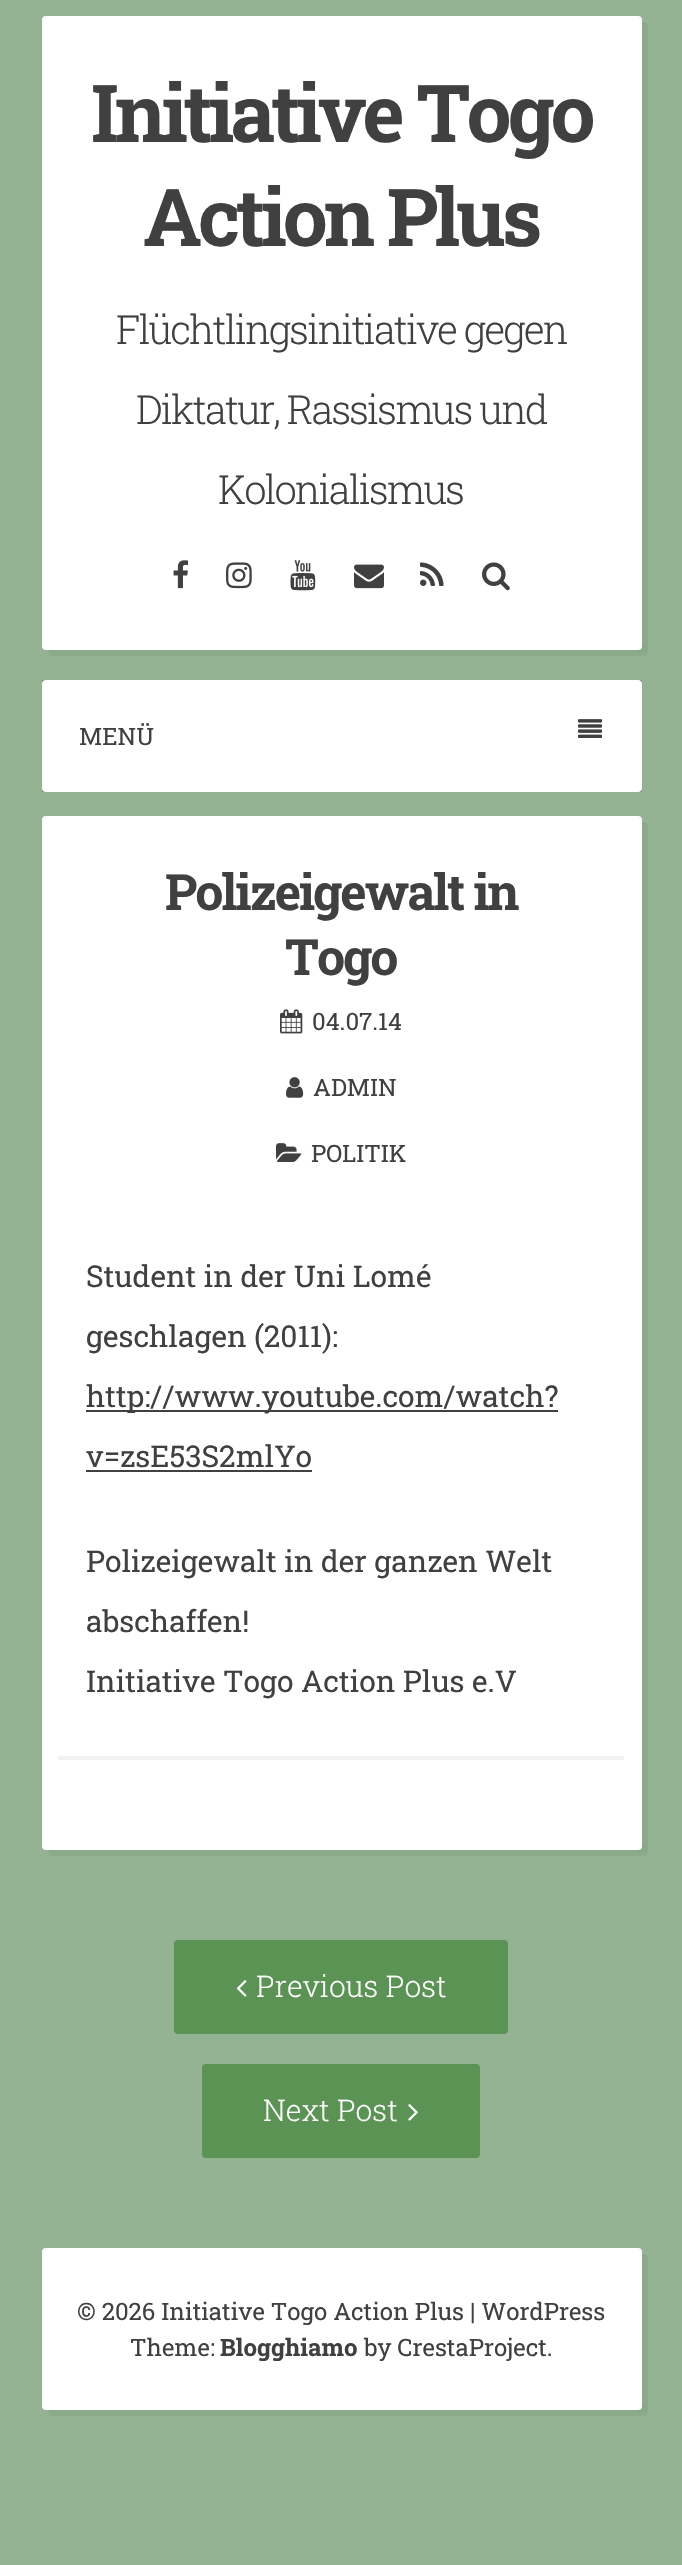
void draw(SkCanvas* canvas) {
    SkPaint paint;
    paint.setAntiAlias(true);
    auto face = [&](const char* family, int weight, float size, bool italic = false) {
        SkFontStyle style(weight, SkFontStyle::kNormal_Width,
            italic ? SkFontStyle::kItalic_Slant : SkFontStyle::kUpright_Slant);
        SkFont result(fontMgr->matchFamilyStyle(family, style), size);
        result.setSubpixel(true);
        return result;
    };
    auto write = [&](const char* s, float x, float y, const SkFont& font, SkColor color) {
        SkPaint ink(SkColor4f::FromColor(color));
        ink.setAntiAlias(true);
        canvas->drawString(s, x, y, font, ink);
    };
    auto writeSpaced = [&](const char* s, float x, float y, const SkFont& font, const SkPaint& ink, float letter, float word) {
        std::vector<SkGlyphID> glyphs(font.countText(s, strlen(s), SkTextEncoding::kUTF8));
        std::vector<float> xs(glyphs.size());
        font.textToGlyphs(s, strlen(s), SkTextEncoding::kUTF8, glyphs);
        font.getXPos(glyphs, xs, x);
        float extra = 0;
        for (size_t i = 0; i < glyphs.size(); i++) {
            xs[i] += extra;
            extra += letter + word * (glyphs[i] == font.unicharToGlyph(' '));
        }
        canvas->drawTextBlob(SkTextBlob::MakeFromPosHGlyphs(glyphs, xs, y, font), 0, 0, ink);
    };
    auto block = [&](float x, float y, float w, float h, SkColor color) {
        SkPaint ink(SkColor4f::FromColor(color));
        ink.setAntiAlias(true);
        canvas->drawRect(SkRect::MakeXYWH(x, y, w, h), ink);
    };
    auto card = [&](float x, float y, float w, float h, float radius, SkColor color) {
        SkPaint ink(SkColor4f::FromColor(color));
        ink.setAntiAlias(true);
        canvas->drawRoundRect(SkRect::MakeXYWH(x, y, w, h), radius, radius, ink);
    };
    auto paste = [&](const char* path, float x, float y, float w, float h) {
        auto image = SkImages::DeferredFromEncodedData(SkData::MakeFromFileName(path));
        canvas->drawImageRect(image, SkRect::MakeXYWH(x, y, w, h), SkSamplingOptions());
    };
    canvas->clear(SkColorSetRGB(147, 179, 146));
    paint.setColor(SkColorSetRGB(140, 170, 139));
    canvas->drawPath(SkPathBuilder().moveTo(48, 650).lineTo(48, 652).cubicTo(48, 654, 50, 656, 52, 656).lineTo(644, 656).cubicTo(646, 656, 648, 654, 648, 652).lineTo(648, 26).cubicTo(648, 24, 646, 22, 644, 22).lineTo(642, 22).lineTo(642, 646).cubicTo(642, 648, 640, 650, 638, 650).close().detach(), paint);
    card(42, 16, 600, 634, 4, SK_ColorWHITE);
    auto kFont1 = face("Roboto Slab", 700, 80);
    paint.setColor(SkColorSetRGB(64, 64, 64));
    writeSpaced("Initiative Togo", 91, 142, kFont1, paint, -4, 0);
    writeSpaced("Action Plus", 143, 246, kFont1, paint, -4, 0);
    auto kFont2 = face("Roboto Slab", 300, 40);
    writeSpaced("Flüchtlingsinitiative gegen", 116, 344, kFont2, paint, -2, 0);
    writeSpaced("Diktatur, Rassismus und", 136, 424, kFont2, paint, -2, 0);
    writeSpaced("Kolonialismus", 218, 504, kFont2, paint, -2, 0);
    paste("pic1.png", 173, 560, 16, 29);
    paste("pic2.png", 226, 562, 26, 27);
    paste("pic3.png", 290, 560, 26, 31);
    paste("pic4.png", 354, 564, 30, 25);
    paste("pic5.png", 420, 562, 24, 24);
    paste("pic6.png", 482, 562, 28, 29);
    block(42, 680, 600, 112, SkColorSetRGB(91, 147, 85));
    card(42, 680, 600, 112, 4, SK_ColorWHITE);
    auto kFont3 = face("Roboto Slab", 400, 24);
    write("MENÜ", 79, 745, kFont3, SkColorSetRGB(64, 64, 64));
    paste("pic7.png", 578, 719, 24, 19);
    paint.setColor(SkColorSetRGB(140, 170, 139));
    canvas->drawPath(SkPathBuilder().moveTo(48, 1850).lineTo(48, 1852).cubicTo(48, 1854, 50, 1856, 52, 1856).lineTo(644, 1856).cubicTo(646, 1856, 648, 1854, 648, 1852).lineTo(648, 826).cubicTo(648, 824, 646, 822, 644, 822).lineTo(642, 822).lineTo(642, 1846).cubicTo(642, 1848, 640, 1850, 638, 1850).close().detach(), paint);
    card(42, 816, 600, 1034, 4, SK_ColorWHITE);
    auto kFont4 = face("Roboto Slab", 700, 50);
    paint.setColor(SkColorSetRGB(64, 64, 64));
    writeSpaced("Polizeigewalt in", 165, 910, kFont4, paint, -2, 0);
    writeSpaced("Togo", 285, 975, kFont4, paint, -2, 0);
    paste("pic8.png", 280, 1009, 23, 25);
    write("04.07.14", 312, 1030, kFont3, SkColorSetRGB(64, 64, 64));
    paste("pic9.png", 286, 1077, 18, 21);
    write("ADMIN", 313, 1096, kFont3, SkColorSetRGB(64, 64, 64));
    paste("pic10.png", 276, 1143, 26, 19);
    write("POLITIK", 311, 1162, kFont3, SkColorSetRGB(64, 64, 64));
    block(58, 1756, 566, 4, SkColorSetRGB(242, 242, 242));
    auto kFont5 = face("Roboto Slab", 400, 30);
    write("Student in der Uni Lomé", 86, 1287, kFont5, SkColorSetRGB(64, 64, 64));
    write("geschlagen (2011):", 86, 1347, kFont5, SkColorSetRGB(64, 64, 64));
    block(86, 1410, 472, 2, SkColorSetRGB(64, 64, 64));
    write("http://www.youtube.com/watch?", 86, 1407, kFont5, SkColorSetRGB(64, 64, 64));
    write("v=zsE53S2mlYo", 86, 1467, kFont5, SkColorSetRGB(64, 64, 64));
    block(86, 1470, 226, 2, SkColorSetRGB(64, 64, 64));
    write("Polizeigewalt in der ganzen Welt", 86, 1572, kFont5, SkColorSetRGB(64, 64, 64));
    write("abschaffen!", 86, 1632, kFont5, SkColorSetRGB(64, 64, 64));
    write("Initiative Togo Action Plus e.V", 86, 1692, kFont5, SkColorSetRGB(64, 64, 64));
    card(174, 1940, 334, 94, 4, SkColorSetRGB(91, 147, 85));
    paste("pic11.png", 236, 1980, 11, 17);
    auto kFont6 = face("Roboto Slab", 300, 30);
    write("Previous Post", 256, 1997, kFont6, SK_ColorWHITE);
    card(202, 2064, 278, 94, 4, SkColorSetRGB(91, 147, 85));
    write("Next Post", 263, 2121, kFont6, SK_ColorWHITE);
    paste("pic12.png", 408, 2104, 10, 17);
    paint.setColor(SkColorSetRGB(140, 170, 139));
    canvas->drawPath(SkPathBuilder().moveTo(48, 2410).lineTo(48, 2412).cubicTo(48, 2414, 50, 2416, 52, 2416).lineTo(644, 2416).cubicTo(646, 2416, 648, 2414, 648, 2412).lineTo(648, 2258).cubicTo(648, 2256, 646, 2254, 644, 2254).lineTo(642, 2254).lineTo(642, 2406).cubicTo(642, 2408, 640, 2410, 638, 2410).close().detach(), paint);
    card(42, 2248, 600, 162, 4, SK_ColorWHITE);
    write("© 2026 Initiative Togo Action Plus | WordPress", 77, 2320, kFont3, SkColorSetRGB(64, 64, 64));
    write("Theme:", 130, 2356, kFont3, SkColorSetRGB(64, 64, 64));
    auto kFont7 = face("Roboto Slab", 700, 24);
    write("Blogghiamo", 220, 2356, kFont7, SkColorSetRGB(64, 64, 64));
    write("by CrestaProject.", 364, 2356, kFont3, SkColorSetRGB(64, 64, 64));
}
